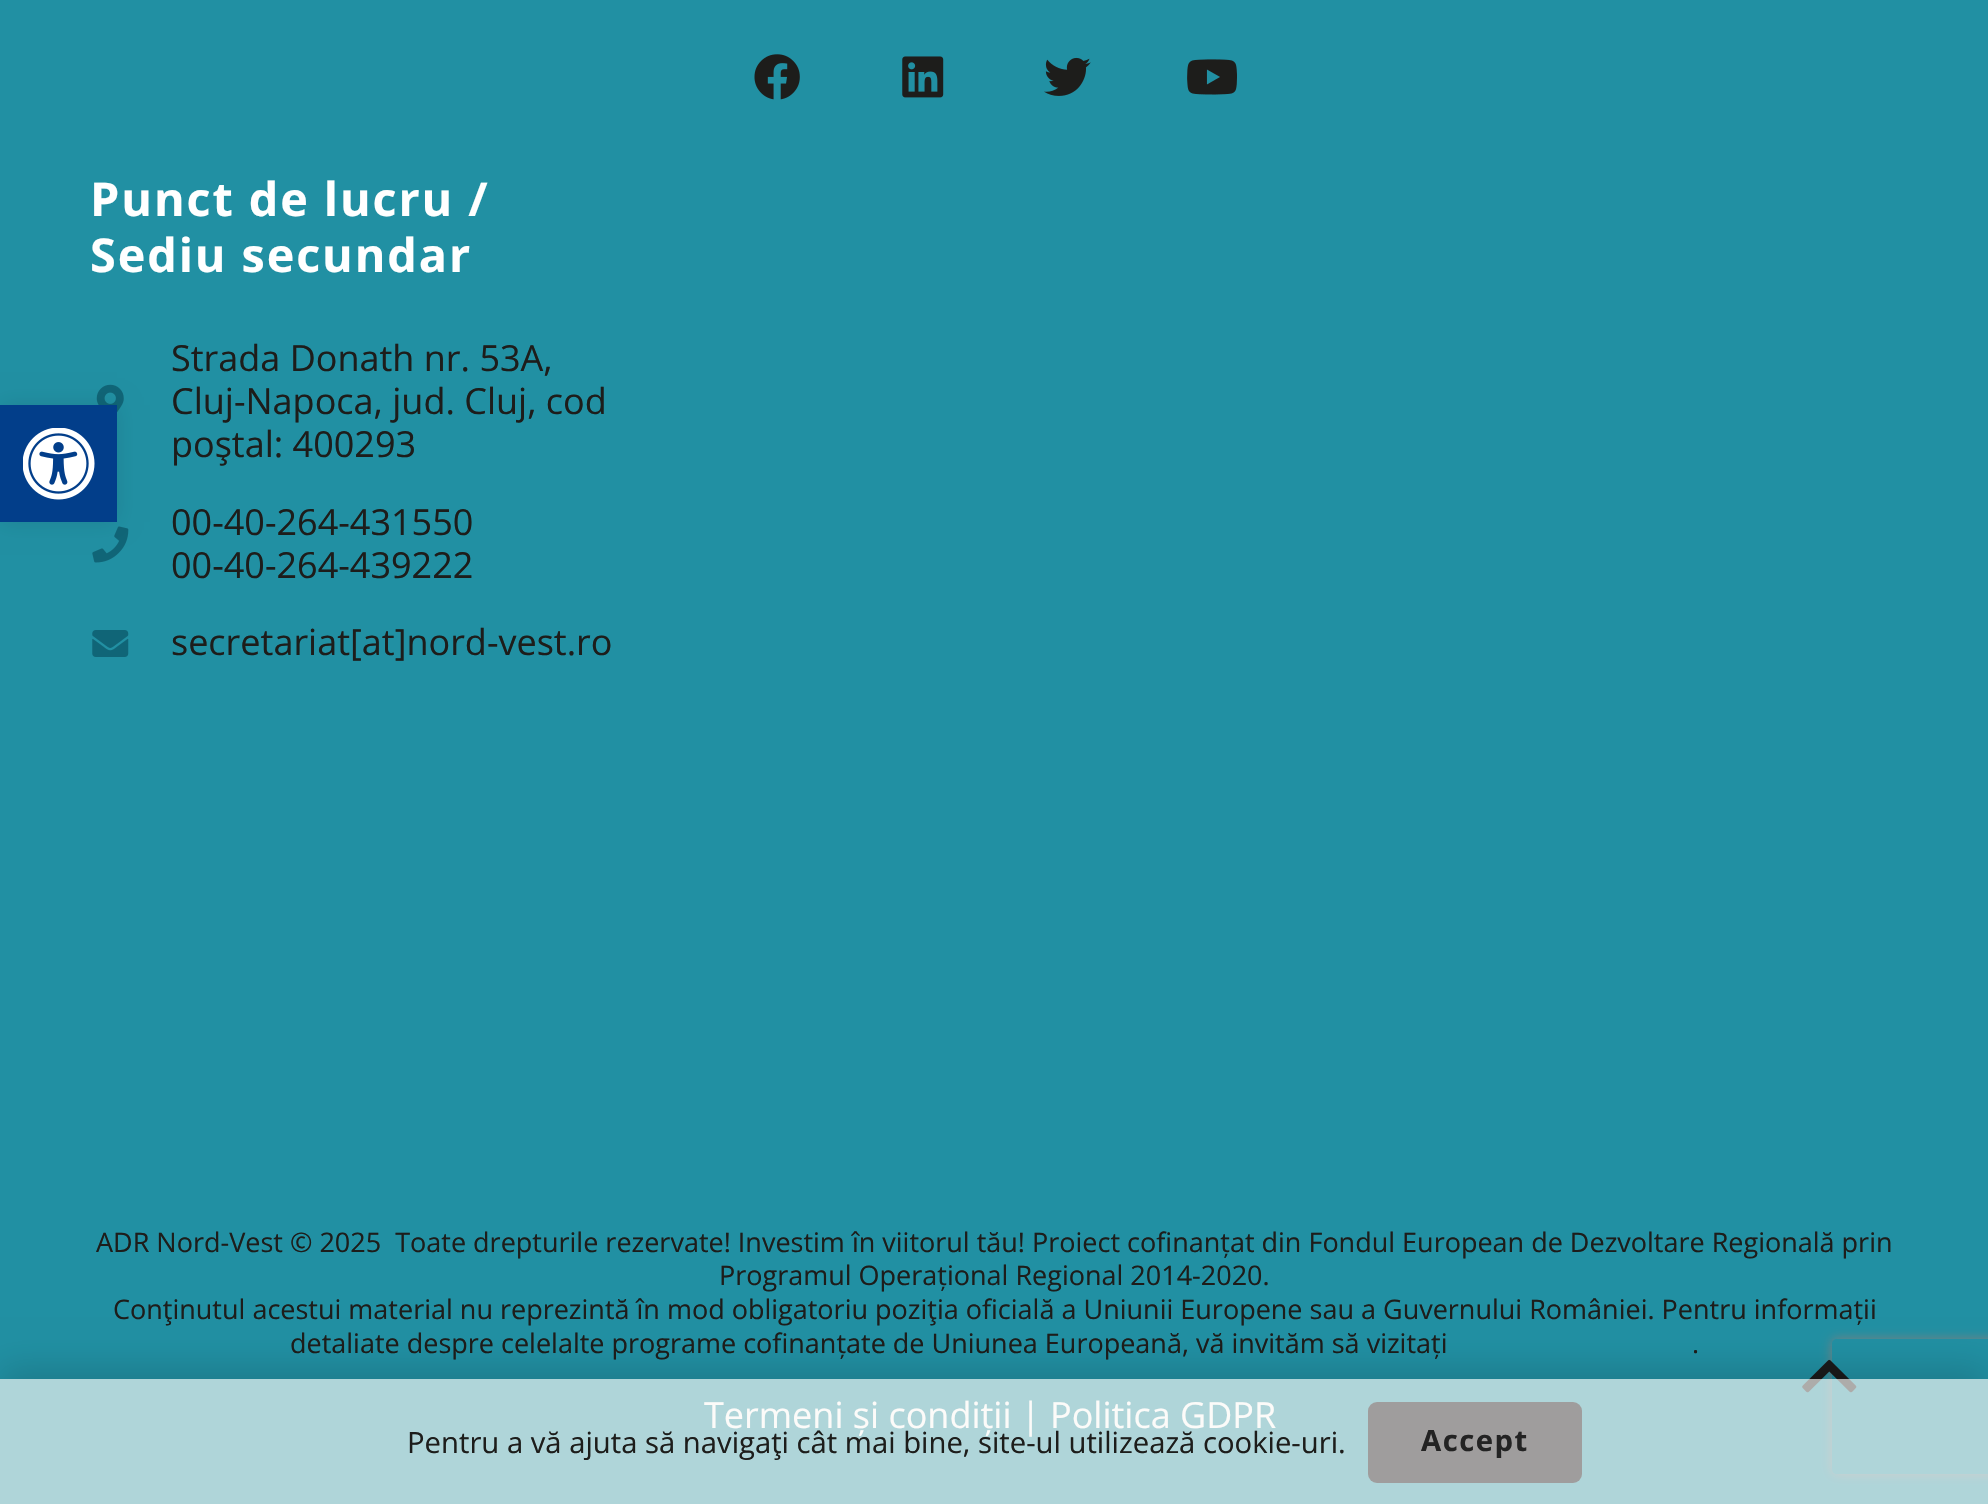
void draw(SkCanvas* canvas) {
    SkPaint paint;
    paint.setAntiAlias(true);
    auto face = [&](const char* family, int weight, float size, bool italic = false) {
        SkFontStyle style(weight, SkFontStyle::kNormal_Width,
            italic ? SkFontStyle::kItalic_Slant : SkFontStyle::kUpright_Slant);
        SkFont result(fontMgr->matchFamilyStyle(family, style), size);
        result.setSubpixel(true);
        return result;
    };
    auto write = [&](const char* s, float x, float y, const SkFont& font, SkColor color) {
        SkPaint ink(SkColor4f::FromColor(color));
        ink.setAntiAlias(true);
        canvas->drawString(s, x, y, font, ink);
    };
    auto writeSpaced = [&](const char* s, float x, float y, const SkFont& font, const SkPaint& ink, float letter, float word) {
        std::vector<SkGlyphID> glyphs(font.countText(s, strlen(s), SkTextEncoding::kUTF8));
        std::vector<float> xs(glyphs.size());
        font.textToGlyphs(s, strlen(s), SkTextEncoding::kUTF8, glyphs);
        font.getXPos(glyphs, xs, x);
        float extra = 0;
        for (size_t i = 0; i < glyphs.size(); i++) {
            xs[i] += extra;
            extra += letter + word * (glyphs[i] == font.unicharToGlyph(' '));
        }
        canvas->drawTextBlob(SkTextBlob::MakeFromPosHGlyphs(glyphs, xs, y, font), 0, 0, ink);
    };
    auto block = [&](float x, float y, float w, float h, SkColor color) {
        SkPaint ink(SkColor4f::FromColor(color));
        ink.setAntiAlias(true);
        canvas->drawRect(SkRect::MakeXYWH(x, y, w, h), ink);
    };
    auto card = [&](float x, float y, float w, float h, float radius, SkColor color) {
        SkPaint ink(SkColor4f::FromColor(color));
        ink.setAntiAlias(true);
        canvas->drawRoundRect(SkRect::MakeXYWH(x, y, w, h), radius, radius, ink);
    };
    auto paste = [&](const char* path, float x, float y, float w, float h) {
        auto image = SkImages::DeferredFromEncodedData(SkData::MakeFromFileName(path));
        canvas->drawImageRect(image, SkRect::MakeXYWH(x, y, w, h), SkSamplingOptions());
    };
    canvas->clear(SkColorSetRGB(33, 144, 163));
    paste("pic6.png", 96, 384, 28, 29);
    paste("pic7.png", 92, 526, 37, 37);
    paint.setColor(SkColorSetARGB(26, 0, 0, 0));
    paint.setMaskFilter(SkMaskFilter::MakeBlur(kNormal_SkBlurStyle, 11));
    canvas->drawRect(SkRect::MakeXYWH(0, 405, 117, 117), paint);
    paint.setMaskFilter(nullptr);
    block(0, 405, 117, 117, SkColorSetRGB(2, 62, 138));
    paste("pic1.png", 23, 428, 72, 72);
    paste("pic2.png", 754, 54, 46, 46);
    paste("pic3.png", 902, 56, 42, 42);
    paste("pic4.png", 1044, 57, 47, 39);
    paste("pic5.png", 1187, 59, 50, 36);
    auto kFont1 = face("Open Sans", 700, 46.75f);
    paint.setColor(SK_ColorWHITE);
    writeSpaced("Punct de lucru /", 90, 216, kFont1, paint, 1.9f, 0);
    writeSpaced("Sediu secundar", 90, 272, kFont1, paint, 1.9f, 0);
    auto kFont2 = face("Open Sans", 400, 36);
    write("Strada Donath nr. 53A,", 171, 371, kFont2, SkColorSetRGB(29, 29, 27));
    write("Cluj-Napoca, jud. Cluj, cod", 171, 414, kFont2, SkColorSetRGB(29, 29, 27));
    write("poştal: 400293", 171, 457, kFont2, SkColorSetRGB(29, 29, 27));
    write("00-40-264-431550", 171, 535, kFont2, SkColorSetRGB(29, 29, 27));
    write("00-40-264-439222", 171, 578, kFont2, SkColorSetRGB(29, 29, 27));
    paste("pic8.png", 92, 630, 37, 27);
    write("secretariat[at]nord-vest.ro", 171, 655, kFont2, SkColorSetRGB(29, 29, 27));
    auto kFont3 = face("Open Sans", 400, 27);
    write("ADR Nord-Vest © 2025  Toate drepturile rezervate! Investim în viitorul tău! Proiect cofinanțat din Fondul European de Dezvoltare Regională prin", 96, 1252, kFont3, SkColorSetRGB(29, 29, 27));
    write("Programul Operațional Regional 2014-2020.", 719, 1285, kFont3, SkColorSetRGB(29, 29, 27));
    write("Conţinutul acestui material nu reprezintă în mod obligatoriu poziţia oficială a Uniunii Europene sau a Guvernului României. Pentru informații", 113, 1319, kFont3, SkColorSetRGB(29, 29, 27));
    write("detaliate despre celelalte programe cofinanțate de Uniunea Europeană, vă invităm să vizitați", 290, 1353, kFont3, SkColorSetRGB(29, 29, 27));
    write(".", 1692, 1353, kFont3, SkColorSetRGB(29, 29, 27));
    write("Termeni și condiții | Politica GDPR", 704, 1428, kFont2, SK_ColorWHITE);
    canvas->save();
    canvas->clipPath(SkPathBuilder(SkPathFillType::kEvenOdd).moveTo(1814, 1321).lineTo(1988, 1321).lineTo(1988, 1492).lineTo(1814, 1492).close().moveTo(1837, 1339).lineTo(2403, 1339).cubicTo(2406, 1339, 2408, 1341, 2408, 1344).lineTo(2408, 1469).cubicTo(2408, 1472, 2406, 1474, 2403, 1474).lineTo(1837, 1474).cubicTo(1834, 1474, 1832, 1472, 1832, 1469).lineTo(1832, 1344).cubicTo(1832, 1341, 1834, 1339, 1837, 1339).close().detach(), true);
    paint.setColor(SkColorSetRGB(128, 128, 128));
    paint.setMaskFilter(SkMaskFilter::MakeBlur(kNormal_SkBlurStyle, 5.5f));
    canvas->drawRoundRect(SkRect::MakeXYWH(1832, 1339, 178, 135), 5, 5, paint);
    paint.setMaskFilter(nullptr);
    canvas->restore();
    paste("pic9.png", 1802, 1359, 55, 34);
    canvas->save();
    canvas->clipPath(SkPathBuilder(SkPathFillType::kEvenOdd).moveTo(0, 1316).lineTo(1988, 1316).lineTo(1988, 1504).lineTo(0, 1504).close().moveTo(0, 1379).lineTo(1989, 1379).lineTo(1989, 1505).lineTo(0, 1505).close().detach(), true);
    paint.setColor(SkColorSetARGB(38, 0, 0, 0));
    paint.setMaskFilter(SkMaskFilter::MakeBlur(kNormal_SkBlurStyle, 17));
    canvas->drawRect(SkRect::MakeXYWH(0, 1368, 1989, 126), paint);
    paint.setMaskFilter(nullptr);
    canvas->restore();
    block(0, 1379, 1988, 125, SkColorSetARGB(166, 250, 249, 246));
    auto kFont4 = face("Open Sans", 400, 29.25f);
    write("Pentru a vă ajuta să navigaţi cât mai bine, site-ul utilizează cookie-uri.", 407, 1453, kFont4, SkColorSetRGB(29, 29, 27));
    card(1368, 1402, 214, 81, 9, SkColorSetRGB(159, 157, 157));
    auto kFont5 = face("Open Sans", 700, 29.25f);
    paint.setColor(SkColorSetRGB(35, 35, 35));
    writeSpaced("Accept", 1421, 1451, kFont5, paint, 1.5f, 0);
}
